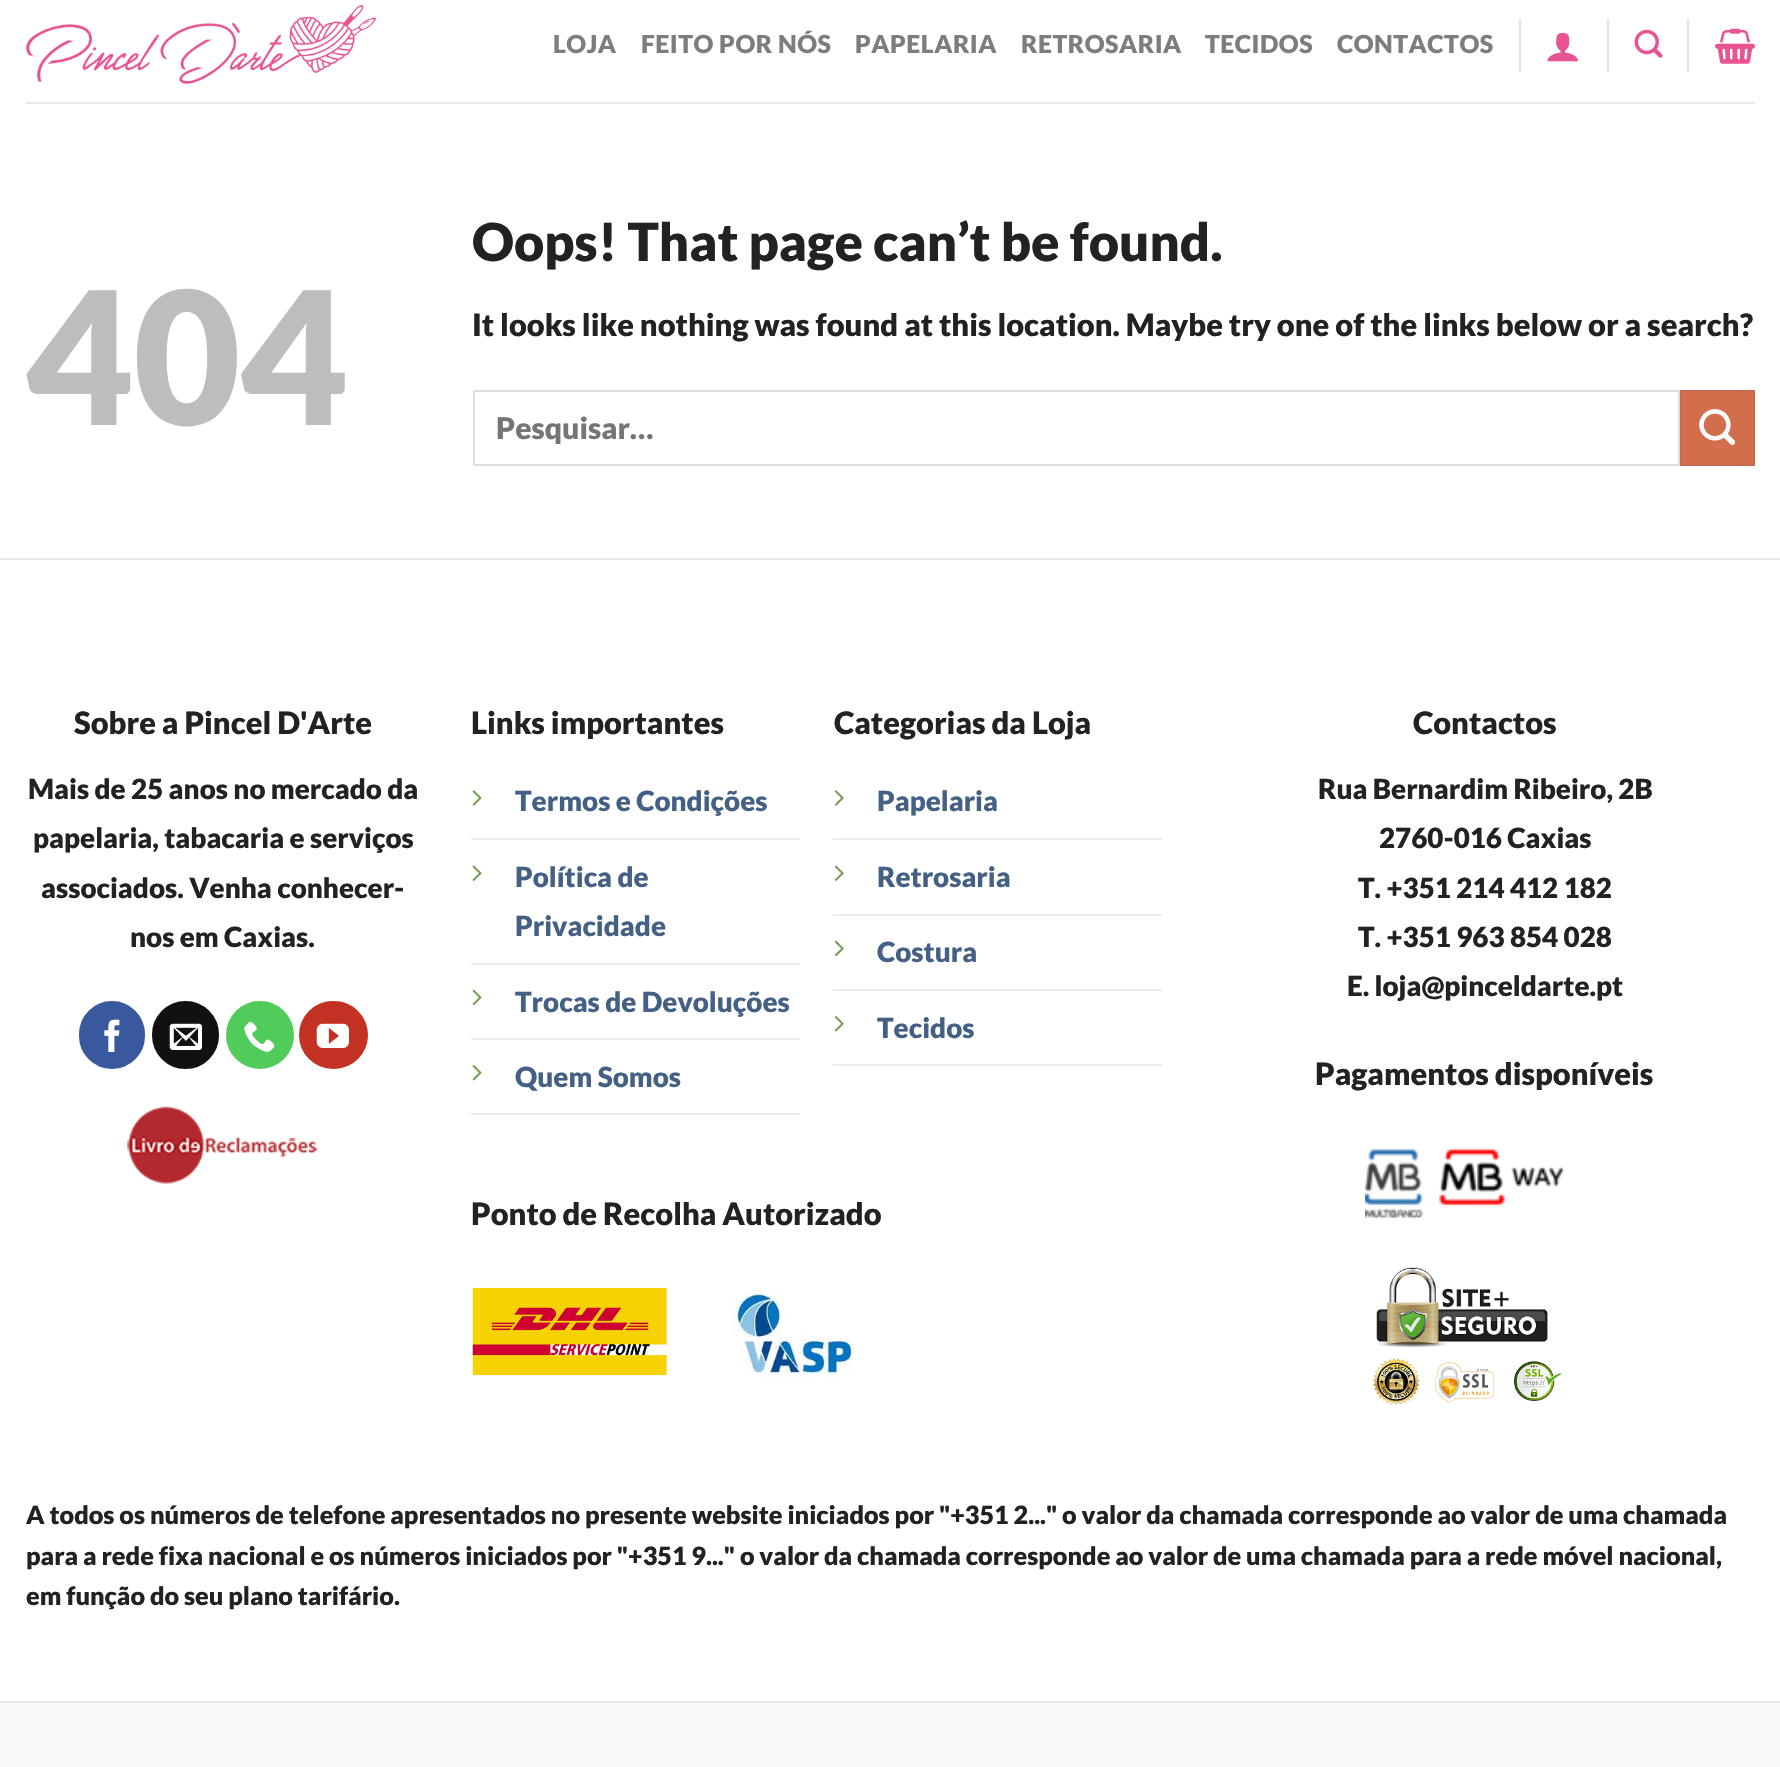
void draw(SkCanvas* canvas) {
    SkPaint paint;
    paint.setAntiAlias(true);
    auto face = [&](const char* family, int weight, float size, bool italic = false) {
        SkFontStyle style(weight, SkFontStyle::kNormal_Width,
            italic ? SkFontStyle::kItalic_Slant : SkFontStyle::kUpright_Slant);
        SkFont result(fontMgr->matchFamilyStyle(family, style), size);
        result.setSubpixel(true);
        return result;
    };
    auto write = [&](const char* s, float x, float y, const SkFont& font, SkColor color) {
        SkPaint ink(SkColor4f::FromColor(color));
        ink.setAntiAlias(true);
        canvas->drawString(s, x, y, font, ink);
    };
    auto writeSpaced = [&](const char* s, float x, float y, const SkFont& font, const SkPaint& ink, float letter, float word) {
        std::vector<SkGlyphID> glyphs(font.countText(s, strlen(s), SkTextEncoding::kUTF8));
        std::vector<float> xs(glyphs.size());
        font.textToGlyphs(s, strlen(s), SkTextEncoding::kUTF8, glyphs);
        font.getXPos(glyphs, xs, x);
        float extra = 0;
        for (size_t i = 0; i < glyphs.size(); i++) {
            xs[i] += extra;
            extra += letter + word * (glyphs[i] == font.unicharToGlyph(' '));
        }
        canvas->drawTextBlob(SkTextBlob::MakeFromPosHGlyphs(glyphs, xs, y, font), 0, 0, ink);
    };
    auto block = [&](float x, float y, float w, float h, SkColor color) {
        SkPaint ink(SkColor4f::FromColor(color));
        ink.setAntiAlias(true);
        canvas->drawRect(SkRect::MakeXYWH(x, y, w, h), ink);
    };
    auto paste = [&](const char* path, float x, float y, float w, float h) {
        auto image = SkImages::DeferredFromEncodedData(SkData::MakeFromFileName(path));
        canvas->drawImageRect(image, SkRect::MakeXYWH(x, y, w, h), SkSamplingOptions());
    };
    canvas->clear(SK_ColorWHITE);
    paste("pic1.png", 26, 5, 351, 79);
    auto kFont1 = face("Lato", 900, 24.75f);
    paint.setColor(SkColorSetRGB(125, 125, 125));
    writeSpaced("LOJA", 553, 53, kFont1, paint, 0.5f, 0);
    writeSpaced("FEITO POR NÓS", 641, 53, kFont1, paint, 0.5f, 0);
    writeSpaced("PAPELARIA", 855, 53, kFont1, paint, 0.5f, 0);
    writeSpaced("RETROSARIA", 1021, 53, kFont1, paint, 0.5f, 0);
    writeSpaced("TECIDOS", 1205, 53, kFont1, paint, 0.5f, 0);
    writeSpaced("CONTACTOS", 1337, 53, kFont1, paint, 0.5f, 0);
    block(1519, 19, 2, 53, SkColorSetRGB(230, 230, 230));
    paste("pic2.png", 1547, 32, 31, 30);
    block(1607, 19, 2, 53, SkColorSetRGB(230, 230, 230));
    paste("pic3.png", 1634, 29, 29, 29);
    block(1687, 19, 2, 53, SkColorSetRGB(230, 230, 230));
    paste("pic4.png", 1715, 28, 40, 36);
    block(26, 102, 1729, 2, SkColorSetRGB(233, 233, 233));
    auto kFont2 = face("Lato", 900, 185);
    write("404", 26, 425, kFont2, SkColorSetRGB(189, 189, 189));
    auto kFont3 = face("Lato", 900, 52.4f);
    write("Oops! That page can’t be found.", 472, 261, kFont3, SkColorSetRGB(34, 34, 34));
    auto kFont4 = face("Lato", 900, 30.8f);
    write("It looks like nothing was found at this location. Maybe try one of the links below or a search?", 472, 336, kFont4, SkColorSetRGB(34, 34, 34));
    paint.setStyle(SkPaint::kStroke_Style);
    paint.setStrokeWidth(2);
    paint.setColor(SkColorSetRGB(221, 221, 221));
    canvas->drawRect(SkRect::MakeXYWH(474, 391, 1205, 74), paint);
    auto kFont5 = face("Lato", 900, 30);
    write("Pesquisar…", 496, 439, kFont5, SkColorSetRGB(117, 117, 117));
    paint.setStyle(SkPaint::kFill_Style);
    paint.setColor(SkColorSetRGB(210, 110, 75));
    canvas->drawRect(SkRect::MakeXYWH(1681, 391, 73, 74), paint);
    paint.setStyle(SkPaint::kStroke_Style);
    paint.setColor(SkColorSetRGB(200, 105, 71));
    canvas->drawRect(SkRect::MakeXYWH(1681, 391, 73, 74), paint);
    paste("pic5.png", 1699, 409, 37, 36);
    block(0, 558, 1780, 2, SkColorSetRGB(230, 230, 230));
    write("Sobre a Pincel D'Arte", 74, 734, kFont4, SkColorSetRGB(34, 34, 34));
    auto kFont6 = face("Lato", 900, 27.75f);
    write("Mais de 25 anos no mercado da", 28, 799, kFont6, SkColorSetRGB(34, 34, 34));
    write("papelaria, tabacaria e serviços", 33, 848, kFont6, SkColorSetRGB(34, 34, 34));
    write("associados. Venha conhecer-", 41, 898, kFont6, SkColorSetRGB(34, 34, 34));
    write("nos em Caxias.", 130, 947, kFont6, SkColorSetRGB(34, 34, 34));
    paint.setStyle(SkPaint::kFill_Style);
    paint.setColor(SkColorSetRGB(58, 88, 157));
    canvas->drawRoundRect(SkRect::MakeXYWH(80, 1002, 64, 66), 32, 32, paint);
    paint.setStyle(SkPaint::kStroke_Style);
    canvas->drawRoundRect(SkRect::MakeXYWH(80, 1002, 64, 66), 32, 32, paint);
    paste("pic6.png", 104, 1019, 16, 33);
    paint.setStyle(SkPaint::kFill_Style);
    paint.setColor(SkColorSetRGB(17, 17, 17));
    canvas->drawRoundRect(SkRect::MakeXYWH(153, 1002, 65, 66), 32.5f, 32.5f, paint);
    paint.setStyle(SkPaint::kStroke_Style);
    canvas->drawRoundRect(SkRect::MakeXYWH(153, 1002, 65, 66), 32.5f, 32.5f, paint);
    paste("pic7.png", 169, 1023, 33, 27);
    paint.setStyle(SkPaint::kFill_Style);
    paint.setColor(SkColorSetRGB(81, 203, 90));
    canvas->drawCircle(260, 1035, 33, paint);
    paint.setStyle(SkPaint::kStroke_Style);
    canvas->drawCircle(260, 1035, 33, paint);
    paste("pic8.png", 244, 1021, 31, 31);
    paint.setStyle(SkPaint::kFill_Style);
    paint.setColor(SkColorSetRGB(195, 50, 35));
    canvas->drawRoundRect(SkRect::MakeXYWH(300, 1002, 67, 66), 33, 33, paint);
    paint.setStyle(SkPaint::kStroke_Style);
    canvas->drawRoundRect(SkRect::MakeXYWH(300, 1002, 67, 66), 33, 33, paint);
    paste("pic9.png", 316, 1023, 33, 25);
    paste("pic10.png", 126, 1106, 192, 78);
    write("Links importantes", 471, 734, kFont4, SkColorSetRGB(34, 34, 34));
    block(471, 838, 329, 2, SkColorSetRGB(236, 236, 236));
    paste("pic11.png", 472, 790, 10, 16);
    write("Termos e Condições", 515, 811, kFont6, SkColorSetRGB(68, 96, 132));
    block(471, 963, 329, 2, SkColorSetRGB(236, 236, 236));
    paste("pic12.png", 472, 865, 10, 16);
    write("Política de", 515, 887, kFont6, SkColorSetRGB(68, 96, 132));
    write("Privacidade", 515, 936, kFont6, SkColorSetRGB(68, 96, 132));
    block(471, 1038, 329, 2, SkColorSetRGB(236, 236, 236));
    paste("pic13.png", 472, 989, 10, 17);
    write("Trocas de Devoluções", 515, 1012, kFont6, SkColorSetRGB(68, 96, 132));
    block(471, 1113, 329, 2, SkColorSetRGB(236, 236, 236));
    paste("pic14.png", 472, 1065, 10, 16);
    write("Quem Somos", 515, 1087, kFont6, SkColorSetRGB(68, 96, 132));
    write("Categorias da Loja", 834, 734, kFont4, SkColorSetRGB(34, 34, 34));
    block(833, 838, 329, 2, SkColorSetRGB(236, 236, 236));
    paste("pic15.png", 834, 790, 10, 16);
    write("Papelaria", 877, 811, kFont6, SkColorSetRGB(68, 96, 132));
    block(833, 914, 329, 2, SkColorSetRGB(236, 236, 236));
    paste("pic16.png", 834, 865, 10, 16);
    write("Retrosaria", 877, 887, kFont6, SkColorSetRGB(68, 96, 132));
    block(833, 989, 329, 2, SkColorSetRGB(236, 236, 236));
    paste("pic17.png", 834, 940, 10, 17);
    write("Costura", 877, 962, kFont6, SkColorSetRGB(68, 96, 132));
    block(833, 1064, 329, 2, SkColorSetRGB(236, 236, 236));
    paste("pic18.png", 834, 1016, 10, 16);
    write("Tecidos", 877, 1038, kFont6, SkColorSetRGB(68, 96, 132));
    write("Ponto de Recolha Autorizado", 471, 1225, kFont4, SkColorSetRGB(34, 34, 34));
    paste("pic19.png", 472, 1287, 195, 89);
    paste("pic20.png", 731, 1288, 122, 91);
    write("Contactos", 1413, 734, kFont4, SkColorSetRGB(34, 34, 34));
    write("Rua Bernardim Ribeiro, 2B", 1318, 799, kFont6, SkColorSetRGB(34, 34, 34));
    write("2760-016 Caxias", 1379, 848, kFont6, SkColorSetRGB(34, 34, 34));
    write("T. +351 214 412 182", 1358, 898, kFont6, SkColorSetRGB(34, 34, 34));
    write("T. +351 963 854 028", 1358, 947, kFont6, SkColorSetRGB(34, 34, 34));
    write("E. loja@pinceldarte.pt", 1347, 996, kFont6, SkColorSetRGB(34, 34, 34));
    write("Pagamentos disponíveis", 1315, 1085, kFont4, SkColorSetRGB(34, 34, 34));
    paste("pic21.png", 1365, 1148, 200, 72);
    paste("pic22.png", 1373, 1267, 189, 138);
    auto kFont7 = face("Lato", 900, 25.2f);
    write("A todos os números de telefone apresentados no presente website iniciados por \"+351 2...\" o valor da chamada corresponde ao valor de uma chamada", 26, 1524, kFont7, SkColorSetRGB(34, 34, 34));
    write("para a rede fixa nacional e os números iniciados por \"+351 9...\" o valor da chamada corresponde ao valor de uma chamada para a rede móvel nacional,", 26, 1565, kFont7, SkColorSetRGB(34, 34, 34));
    write("em função do seu plano tarifário.", 26, 1605, kFont7, SkColorSetRGB(34, 34, 34));
    block(0, 1701, 1780, 2, SkColorSetRGB(230, 230, 230));
    block(0, 1703, 1780, 64, SkColorSetRGB(250, 250, 250));
}
